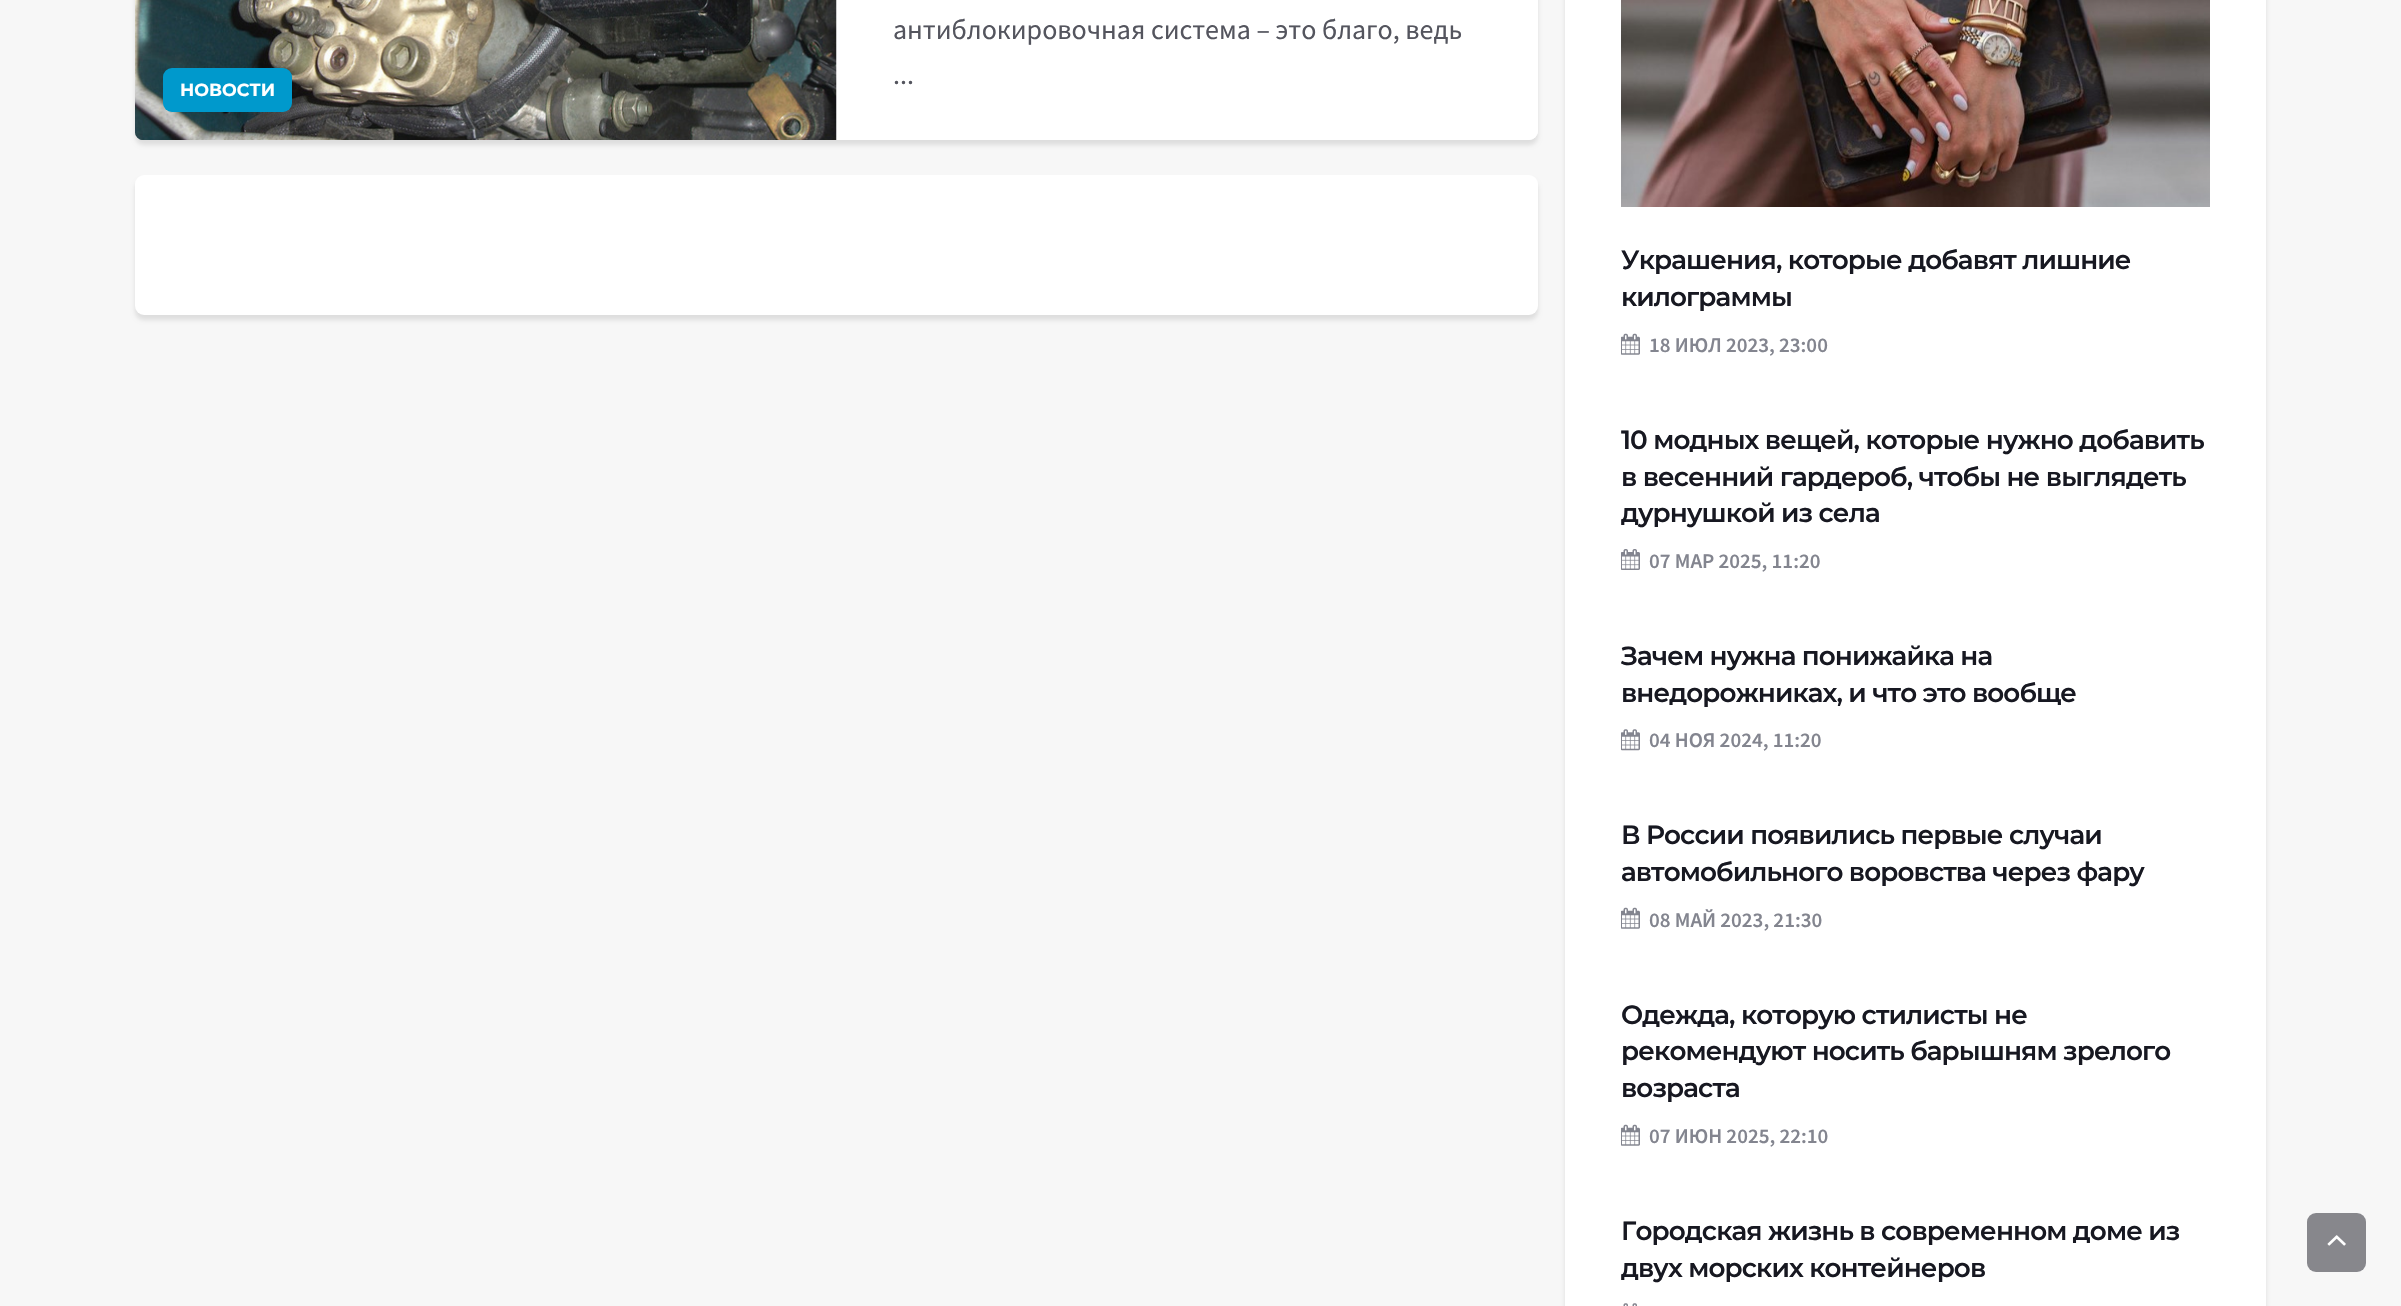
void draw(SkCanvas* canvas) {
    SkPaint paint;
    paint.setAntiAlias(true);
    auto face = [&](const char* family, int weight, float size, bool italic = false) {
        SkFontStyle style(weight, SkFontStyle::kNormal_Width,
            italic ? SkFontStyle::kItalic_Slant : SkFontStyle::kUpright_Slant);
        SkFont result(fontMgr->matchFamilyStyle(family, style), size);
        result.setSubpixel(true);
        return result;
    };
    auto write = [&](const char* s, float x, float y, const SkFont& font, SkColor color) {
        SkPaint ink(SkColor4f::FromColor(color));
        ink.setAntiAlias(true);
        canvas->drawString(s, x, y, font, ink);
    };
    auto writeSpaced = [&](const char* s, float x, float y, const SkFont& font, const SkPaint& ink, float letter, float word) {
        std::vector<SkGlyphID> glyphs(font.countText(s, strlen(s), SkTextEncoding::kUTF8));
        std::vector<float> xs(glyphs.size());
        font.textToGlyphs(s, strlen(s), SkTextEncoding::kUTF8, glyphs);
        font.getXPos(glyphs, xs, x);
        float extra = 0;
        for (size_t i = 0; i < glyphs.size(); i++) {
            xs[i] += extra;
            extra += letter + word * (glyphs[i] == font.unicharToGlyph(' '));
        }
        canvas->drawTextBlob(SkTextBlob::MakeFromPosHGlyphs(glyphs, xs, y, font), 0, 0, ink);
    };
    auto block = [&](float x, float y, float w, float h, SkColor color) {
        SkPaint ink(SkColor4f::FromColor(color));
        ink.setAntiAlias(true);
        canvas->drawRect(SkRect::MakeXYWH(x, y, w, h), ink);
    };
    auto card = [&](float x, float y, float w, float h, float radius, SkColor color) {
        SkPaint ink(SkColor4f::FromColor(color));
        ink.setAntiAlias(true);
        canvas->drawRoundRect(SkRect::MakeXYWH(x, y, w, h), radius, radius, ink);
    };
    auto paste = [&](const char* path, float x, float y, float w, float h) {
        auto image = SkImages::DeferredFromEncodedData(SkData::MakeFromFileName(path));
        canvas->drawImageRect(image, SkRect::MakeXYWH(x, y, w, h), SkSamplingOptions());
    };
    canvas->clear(SkColorSetRGB(247, 247, 247));
    paint.setColor(SkColorSetARGB(26, 0, 0, 0));
    paint.setMaskFilter(SkMaskFilter::MakeBlur(kNormal_SkBlurStyle, 2));
    canvas->drawRoundRect(SkRect::MakeXYWH(135, -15, 1403, 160), 9, 9, paint);
    paint.setMaskFilter(nullptr);
    card(135, -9, 1403, 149, 9, SK_ColorWHITE);
    card(837, -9, 701, 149, 9, SK_ColorWHITE);
    auto kFont1 = face("Source Sans Pro", 400, 28);
    write("антиблокировочная система – это благо, ведь", 893, 39, kFont1, SkColorSetRGB(84, 85, 94));
    write("...", 893, 84, kFont1, SkColorSetRGB(84, 85, 94));
    paste("pic1.png", 135, 0, 702, 140);
    card(163, 68, 129, 44, 9, SkColorSetRGB(0, 153, 204));
    auto kFont2 = face("Montserrat", 700, 17.5f);
    write("НОВОСТИ", 180, 96, kFont2, SK_ColorWHITE);
    paint.setMaskFilter(SkMaskFilter::MakeBlur(kNormal_SkBlurStyle, 2));
    canvas->drawRoundRect(SkRect::MakeXYWH(135, 180, 1403, 140), 9, 9, paint);
    paint.setMaskFilter(nullptr);
    card(135, 175, 1403, 140, 9, SK_ColorWHITE);
    paint.setMaskFilter(SkMaskFilter::MakeBlur(kNormal_SkBlurStyle, 2));
    canvas->drawRoundRect(SkRect::MakeXYWH(1565, -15, 701, 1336), 9, 9, paint);
    paint.setMaskFilter(nullptr);
    block(1565, 0, 701, 1306, SK_ColorWHITE);
    paste("pic2.png", 1621, 0, 589, 207);
    auto kFont3 = face("Montserrat", 600, 26.25f);
    paint.setColor(SkColorSetRGB(23, 24, 33));
    writeSpaced("Украшения, которые добавят лишние", 1621, 269, kFont3, paint, -0.9f, 0);
    writeSpaced("килограммы", 1621, 306, kFont3, paint, -0.9f, 0);
    paste("pic3.png", 1621, 333, 19, 22);
    auto kFont4 = face("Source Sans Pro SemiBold", 600, 21);
    write("18 ИЮЛ 2023, 23:00", 1649, 352, kFont4, SkColorSetRGB(131, 133, 143));
    canvas->save();
    canvas->clipRect(SkRect::MakeXYWH(1621, 415, 589, 164));
    writeSpaced("10 модных вещей, которые нужно добавить", 1621, 449, kFont3, paint, -0.9f, 0);
    canvas->restore();
    writeSpaced("в весенний гардероб, чтобы не выглядеть", 1621, 486, kFont3, paint, -0.9f, 0);
    canvas->save();
    canvas->clipRect(SkRect::MakeXYWH(1621, 415, 589, 164));
    writeSpaced("дурнушкой из села", 1621, 522, kFont3, paint, -0.9f, 0);
    canvas->restore();
    paste("pic4.png", 1621, 549, 19, 21);
    write("07 МАР 2025, 11:20", 1649, 568, kFont4, SkColorSetRGB(131, 133, 143));
    writeSpaced("Зачем нужна понижайка на", 1621, 665, kFont3, paint, -0.9f, 0);
    writeSpaced("внедорожниках, и что это вообще", 1621, 702, kFont3, paint, -0.9f, 0);
    paste("pic5.png", 1621, 729, 19, 22);
    write("04 НОЯ 2024, 11:20", 1649, 747, kFont4, SkColorSetRGB(131, 133, 143));
    writeSpaced("В России появились первые случаи", 1621, 844, kFont3, paint, -0.9f, 0);
    writeSpaced("автомобильного воровства через фару", 1621, 881, kFont3, paint, -0.9f, 0);
    paste("pic3.png", 1621, 907, 19, 22);
    write("08 МАЙ 2023, 21:30", 1649, 927, kFont4, SkColorSetRGB(131, 133, 143));
    writeSpaced("Одежда, которую стилисты не", 1621, 1024, kFont3, paint, -0.9f, 0);
    writeSpaced("рекомендуют носить барышням зрелого", 1621, 1060, kFont3, paint, -0.9f, 0);
    writeSpaced("возраста", 1621, 1097, kFont3, paint, -0.9f, 0);
    paste("pic3.png", 1621, 1124, 19, 22);
    write("07 ИЮН 2025, 22:10", 1649, 1143, kFont4, SkColorSetRGB(131, 133, 143));
    writeSpaced("Городская жизнь в современном доме из", 1621, 1240, kFont3, paint, -0.9f, 0);
    canvas->save();
    canvas->clipRect(SkRect::MakeXYWH(1621, 1206, 589, 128));
    writeSpaced("двух морских контейнеров", 1621, 1277, kFont3, paint, -0.9f, 0);
    canvas->restore();
    paste("pic6.png", 1623, 1303, 14, 3);
    card(2307, 1213, 59, 59, 9, SkColorSetRGB(135, 135, 140));
    paste("pic7.png", 2327, 1235, 19, 11);
}
